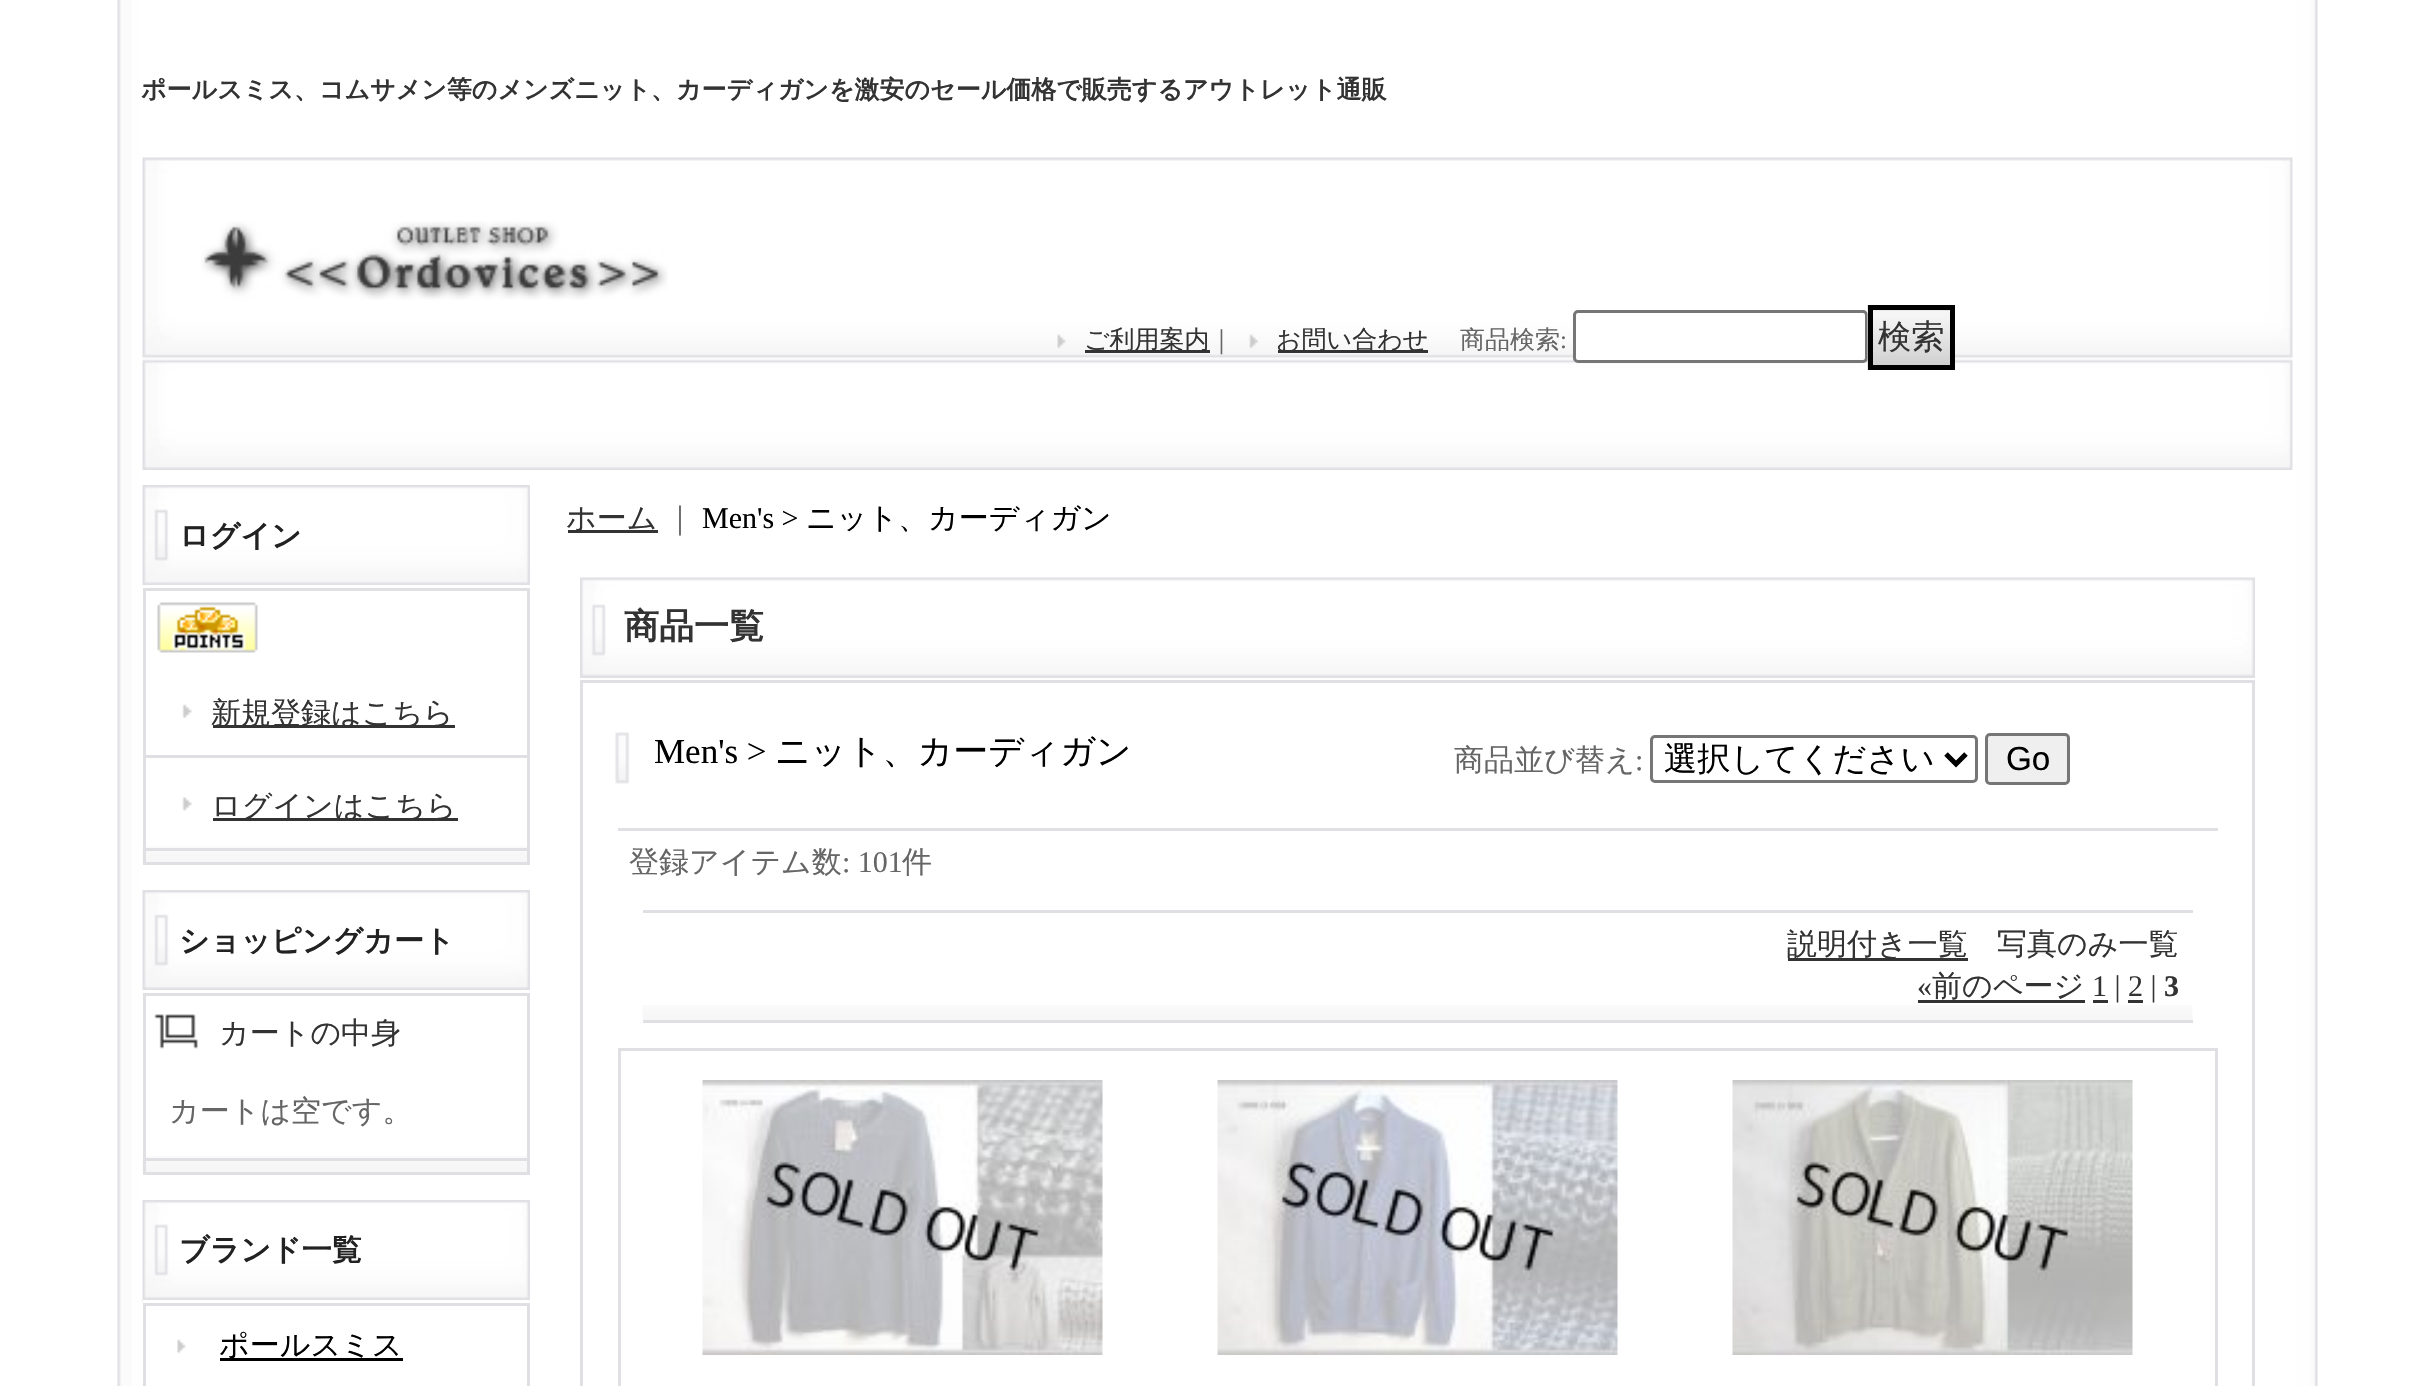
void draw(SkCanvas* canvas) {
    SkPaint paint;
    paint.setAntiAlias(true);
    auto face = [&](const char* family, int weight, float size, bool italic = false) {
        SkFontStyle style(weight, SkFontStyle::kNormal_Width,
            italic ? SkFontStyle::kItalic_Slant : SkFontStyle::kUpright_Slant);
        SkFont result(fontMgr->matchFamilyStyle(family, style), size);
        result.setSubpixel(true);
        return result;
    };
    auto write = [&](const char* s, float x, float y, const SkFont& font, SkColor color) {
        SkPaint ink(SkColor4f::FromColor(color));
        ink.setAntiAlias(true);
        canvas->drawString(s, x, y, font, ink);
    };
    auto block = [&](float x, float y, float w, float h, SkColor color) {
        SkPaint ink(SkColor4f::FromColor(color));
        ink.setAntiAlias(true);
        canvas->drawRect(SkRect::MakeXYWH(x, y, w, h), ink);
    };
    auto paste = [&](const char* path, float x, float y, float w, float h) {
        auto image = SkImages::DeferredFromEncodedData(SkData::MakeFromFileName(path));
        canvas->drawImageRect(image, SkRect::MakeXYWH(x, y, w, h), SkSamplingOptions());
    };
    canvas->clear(SK_ColorWHITE);
    paste("pic1.png", 117, 0, 2201, 1386);
    auto kFont1 = face("WenQuanYi Zen Hei", 700, 25);
    write("ポールスミス、コムサメン等のメンズニット、カーディガンを激安のセール価格で販売するアウトレット通販", 141, 98, kFont1, SkColorSetRGB(51, 51, 51));
    paste("pic2.png", 142, 157, 2151, 313);
    paste("pic3.png", 201, 221, 467, 79);
    paste("pic4.png", 1057, 334, 9, 15);
    block(1085, 350, 125, 3, SkColorSetRGB(51, 51, 51));
    auto kFont2 = face("WenQuanYi Zen Hei", 500, 25);
    write("ご利用案内", 1084, 348, kFont2, SkColorSetRGB(51, 51, 51));
    write("｜", 1209, 348, kFont2, SkColorSetRGB(102, 102, 102));
    paste("pic5.png", 1249, 334, 10, 15);
    block(1278, 350, 150, 3, SkColorSetRGB(51, 51, 51));
    write("お問い合わせ", 1276, 348, kFont2, SkColorSetRGB(51, 51, 51));
    write("商品検索", 1460, 348, kFont2, SkColorSetRGB(102, 102, 102));
    auto kFont3 = face("Liberation Serif", 400, 25);
    write(":", 1560, 348, kFont3, SkColorSetRGB(102, 102, 102));
    paint.setColor(SK_ColorWHITE);
    canvas->drawRoundRect(SkRect::MakeXYWH(1574.5f, 311.5f, 292, 50), 3.5f, 3.5f, paint);
    paint.setStyle(SkPaint::kStroke_Style);
    paint.setStrokeWidth(3);
    paint.setColor(SkColorSetRGB(118, 118, 118));
    canvas->drawRoundRect(SkRect::MakeXYWH(1574.5f, 311.5f, 292, 50), 3.5f, 3.5f, paint);
    paste("pic6.png", 1867, 305, 83, 65);
    paint.setStrokeWidth(5);
    paint.setColor(SK_ColorBLACK);
    canvas->drawRect(SkRect::MakeXYWH(1870.5f, 307.5f, 82, 60), paint);
    auto kFont4 = face("WenQuanYi Zen Hei", 500, 33.25f);
    write("検索", 1878, 348, kFont4, SkColorSetRGB(51, 51, 51));
    paste("pic7.png", 142, 485, 388, 100);
    auto kFont5 = face("WenQuanYi Zen Hei", 700, 30);
    write("ログイン", 179, 546, kFont5, SkColorSetRGB(34, 34, 34));
    paste("pic8.png", 142, 846, 385, 17);
    paint.setStrokeWidth(3);
    paint.setColor(SkColorSetRGB(224, 223, 227));
    canvas->drawRect(SkRect::MakeXYWH(144.5f, 589.5f, 384, 274), paint);
    paste("pic9.png", 157, 602, 101, 51);
    block(145, 755, 383, 3, SkColorSetRGB(224, 223, 227));
    paste("pic10.png", 182, 704, 10, 15);
    block(213, 725, 242, 3, SkColorSetRGB(51, 51, 51));
    auto kFont6 = face("WenQuanYi Zen Hei", 500, 30);
    write("新規登録はこちら", 211, 723, kFont6, SkColorSetRGB(51, 51, 51));
    block(145, 848, 383, 3, SkColorSetRGB(224, 223, 227));
    paste("pic11.png", 182, 797, 10, 14);
    block(213, 818, 245, 3, SkColorSetRGB(51, 51, 51));
    write("ログインはこちら", 211, 816, kFont6, SkColorSetRGB(51, 51, 51));
    paste("pic7.png", 142, 890, 388, 100);
    write("ショッピングカート", 179, 951, kFont5, SkColorSetRGB(34, 34, 34));
    paste("pic8.png", 142, 1156, 385, 17);
    canvas->drawRect(SkRect::MakeXYWH(144.5f, 994.5f, 384, 179), paint);
    paste("pic12.png", 154, 1014, 44, 35);
    write("カートの中身", 219, 1043, kFont6, SkColorSetRGB(51, 51, 51));
    block(145, 1158, 383, 3, SkColorSetRGB(224, 223, 227));
    write("カートは空です。", 169, 1121, kFont6, SkColorSetRGB(102, 102, 102));
    paste("pic13.png", 142, 1200, 388, 103);
    block(143, 1300, 387, 3, SK_ColorWHITE);
    write("ブランド一覧", 179, 1260, kFont5, SkColorSetRGB(34, 34, 34));
    canvas->drawRect(SkRect::MakeXYWH(144.5f, 1304.5f, 384, 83), paint);
    paste("pic14.png", 177, 1339, 9, 15);
    block(220, 1358, 183, 3, SK_ColorBLACK);
    write("ポールスミス", 219, 1355, kFont6, SK_ColorBLACK);
    block(568, 530, 90, 3, SkColorSetRGB(51, 51, 51));
    write("ホーム", 566, 528, kFont6, SkColorSetRGB(51, 51, 51));
    write("｜", 665, 528, kFont6, SkColorSetRGB(102, 102, 102));
    auto kFont7 = face("Liberation Serif", 400, 30);
    write("Men's >", 702, 528, kFont7, SK_ColorBLACK);
    write("ニット、カーディガン", 806, 528, kFont6, SK_ColorBLACK);
    paste("pic15.png", 580, 577, 1675, 101);
    auto kFont8 = face("WenQuanYi Zen Hei", 700, 35);
    write("商品一覧", 624, 638, kFont8, SkColorSetRGB(51, 51, 51));
    canvas->drawRect(SkRect::MakeXYWH(581.5f, 681.5f, 1672, 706), paint);
    paste("pic16.png", 615, 732, 15, 52);
    auto kFont9 = face("Liberation Serif", 400, 35);
    write("Men's >", 654, 763, kFont9, SK_ColorBLACK);
    auto kFont10 = face("WenQuanYi Zen Hei", 500, 35);
    write("ニット、カーディガン", 775, 763, kFont10, SK_ColorBLACK);
    write("商品並び替え", 1454, 770, kFont6, SkColorSetRGB(102, 102, 102));
    write(":", 1635, 770, kFont7, SkColorSetRGB(102, 102, 102));
    paint.setColor(SkColorSetRGB(118, 118, 118));
    canvas->drawRoundRect(SkRect::MakeXYWH(1651.5f, 736.5f, 325, 45), 3.5f, 3.5f, paint);
    paint.setStrokeWidth(5);
    paint.setColor(SK_ColorBLACK);
    canvas->drawPath(SkPathBuilder().moveTo(1946, 754).lineTo(1956, 764).lineTo(1966, 754).detach(), paint);
    write("選択してください", 1664, 770, kFont4, SK_ColorBLACK);
    paint.setStyle(SkPaint::kFill_Style);
    paint.setColor(SkColorSetRGB(239, 239, 239));
    canvas->drawRoundRect(SkRect::MakeXYWH(1986.5f, 734.5f, 82, 49), 3.5f, 3.5f, paint);
    paint.setStyle(SkPaint::kStroke_Style);
    paint.setStrokeWidth(3);
    paint.setColor(SkColorSetRGB(118, 118, 118));
    canvas->drawRoundRect(SkRect::MakeXYWH(1986.5f, 734.5f, 82, 49), 3.5f, 3.5f, paint);
    auto kFont11 = face("Liberation Sans", 400, 33.25f);
    write("Go", 2006, 770, kFont11, SK_ColorBLACK);
    block(618, 828, 1600, 3, SkColorSetRGB(224, 223, 227));
    write("登録アイテム数", 629, 872, kFont6, SkColorSetRGB(102, 102, 102));
    write(": 101", 842, 872, kFont7, SkColorSetRGB(102, 102, 102));
    write("件", 902, 872, kFont6, SkColorSetRGB(102, 102, 102));
    paste("pic17.png", 642, 1005, 1551, 15);
    block(643, 910, 1550, 3, SkColorSetRGB(224, 223, 227));
    block(643, 1020, 1550, 3, SkColorSetRGB(224, 223, 227));
    block(1788, 958, 180, 3, SkColorSetRGB(51, 51, 51));
    write("説明付き一覧", 1787, 954, kFont6, SkColorSetRGB(51, 51, 51));
    write("写真のみ一覧", 1997, 954, kFont6, SkColorSetRGB(51, 51, 51));
    write("«", 1917, 996, kFont7, SkColorSetRGB(51, 51, 51));
    block(1918, 1000, 167, 3, SkColorSetRGB(51, 51, 51));
    write("前のページ", 1932, 996, kFont6, SkColorSetRGB(51, 51, 51));
    block(2093, 1000, 15, 3, SkColorSetRGB(51, 51, 51));
    write("1 | 2 |", 2092, 996, kFont7, SkColorSetRGB(51, 51, 51));
    auto kFont12 = face("Liberation Serif", 700, 30);
    write("3", 2164, 996, kFont12, SkColorSetRGB(51, 51, 51));
    block(2128, 1000, 15, 3, SkColorSetRGB(51, 51, 51));
    paint.setColor(SkColorSetRGB(224, 223, 227));
    canvas->drawRect(SkRect::MakeXYWH(619.5f, 1049.5f, 1597, 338), paint);
    paste("pic18.png", 702, 1080, 401, 275);
    paste("pic19.png", 1217, 1080, 401, 275);
    paste("pic20.png", 1732, 1080, 401, 275);
}
